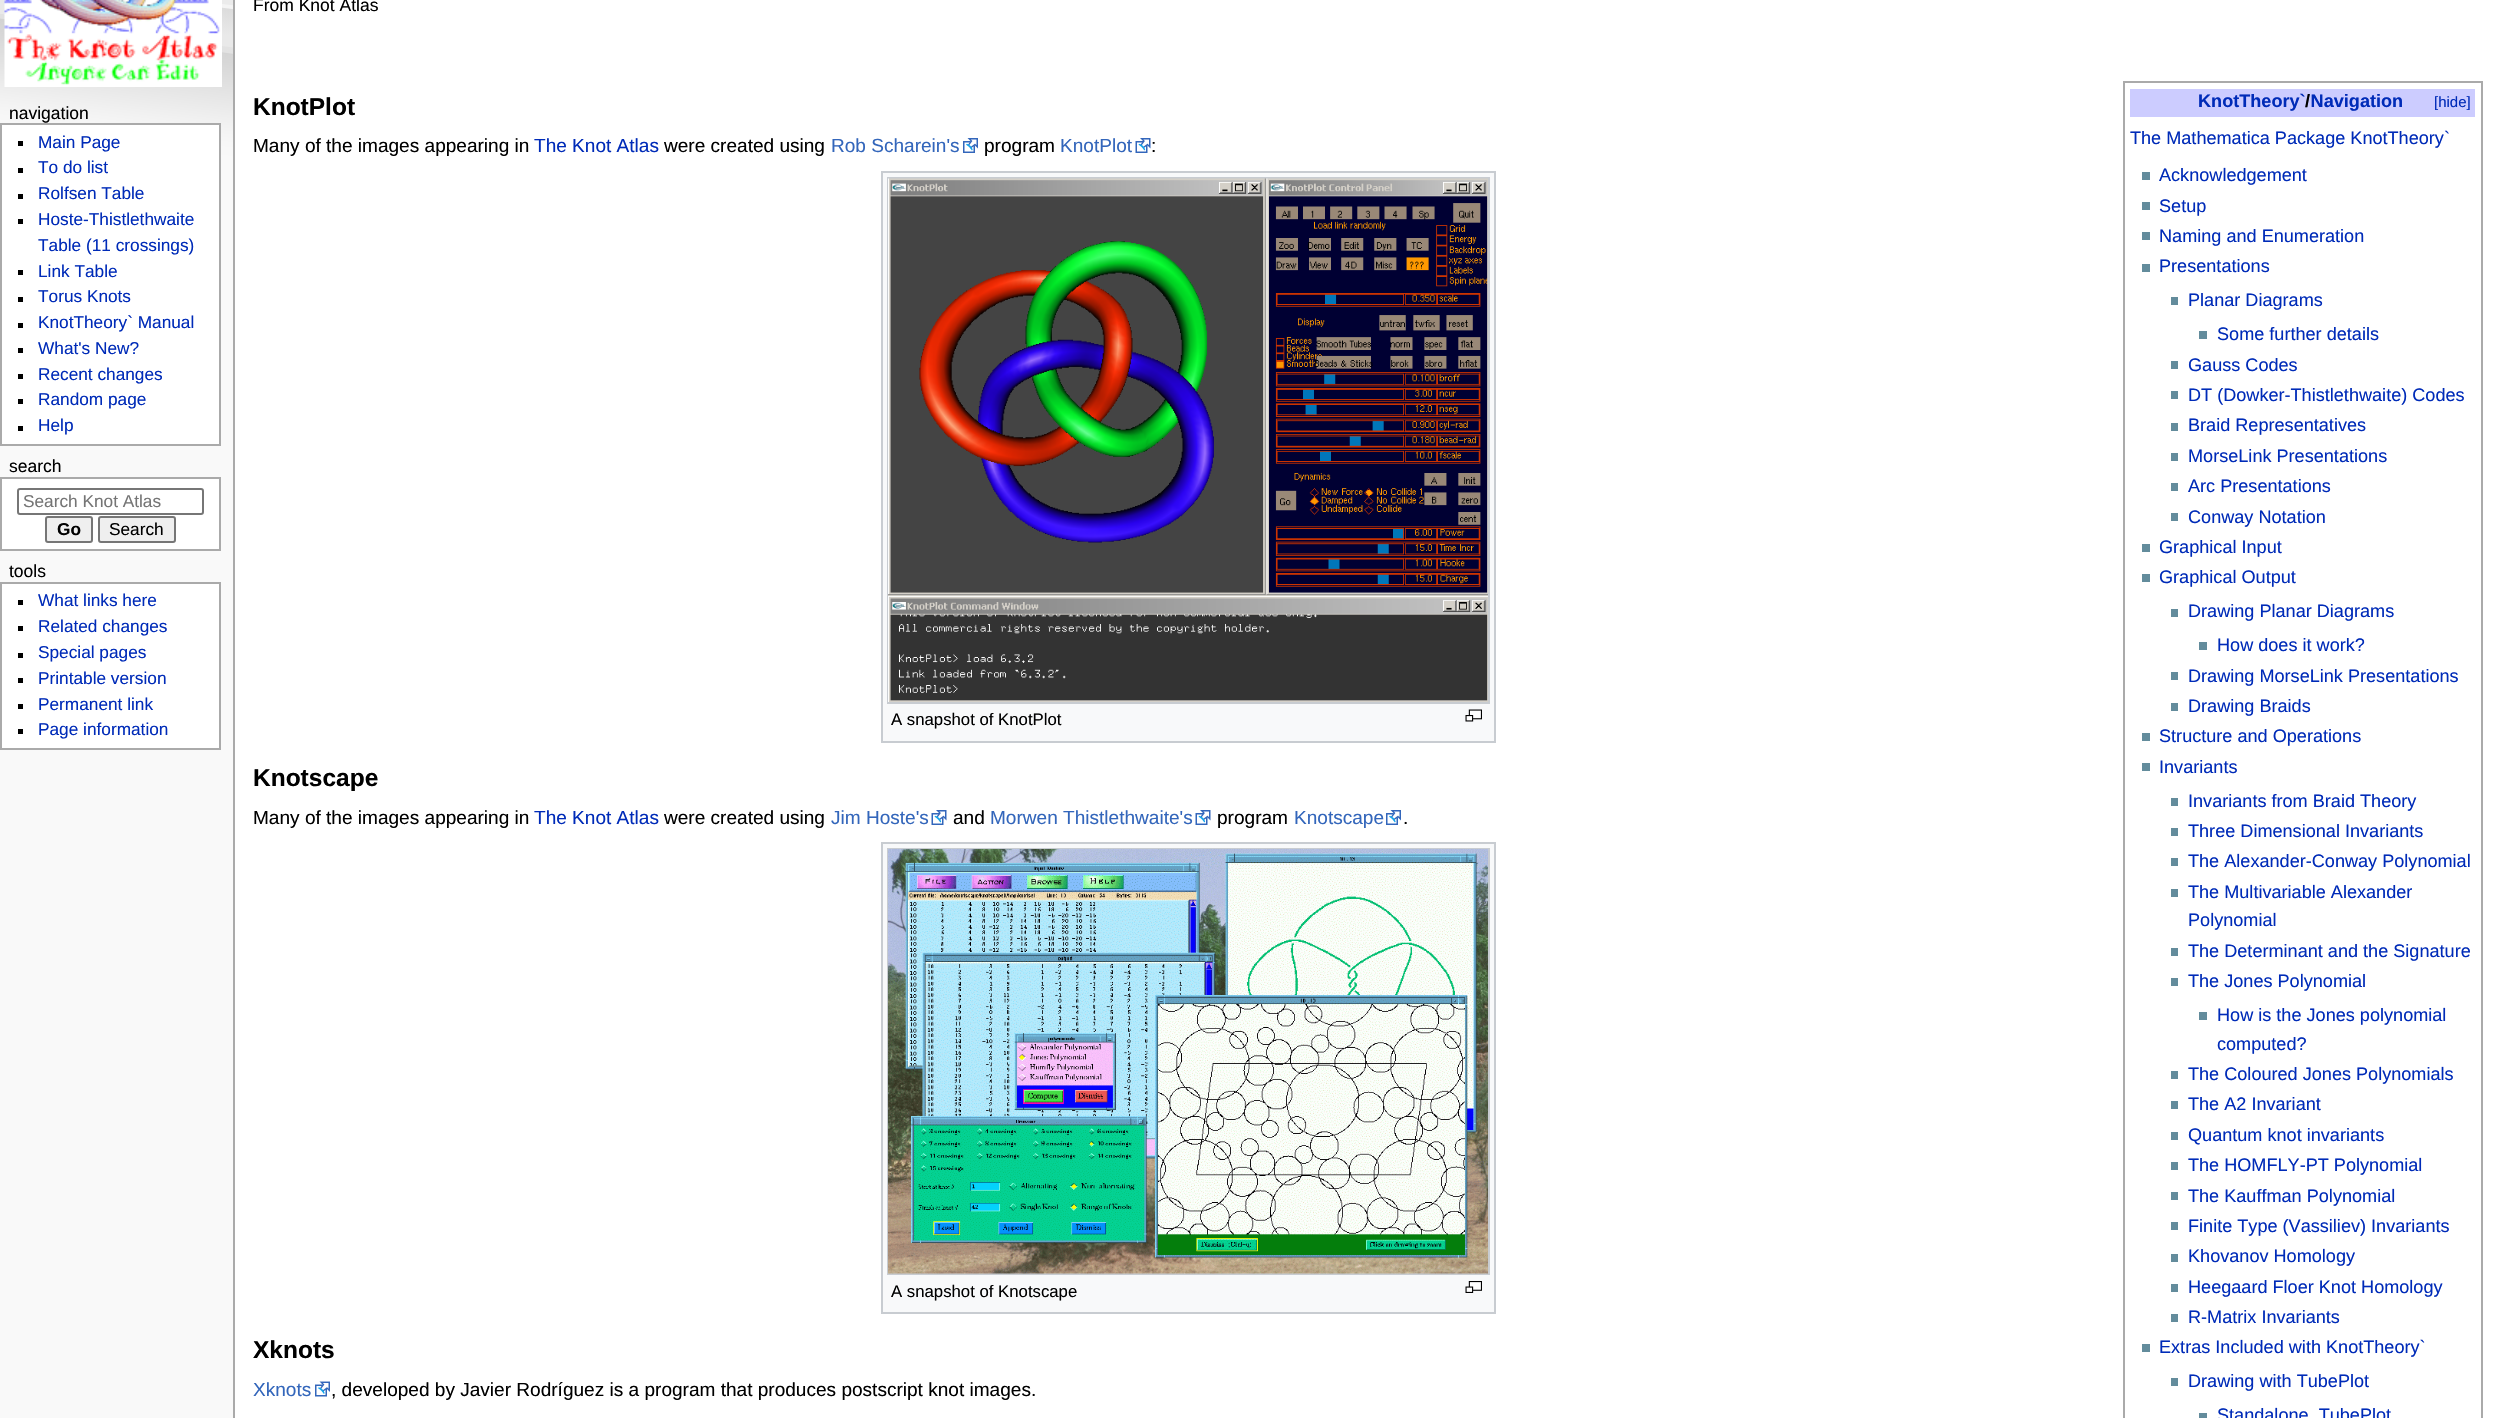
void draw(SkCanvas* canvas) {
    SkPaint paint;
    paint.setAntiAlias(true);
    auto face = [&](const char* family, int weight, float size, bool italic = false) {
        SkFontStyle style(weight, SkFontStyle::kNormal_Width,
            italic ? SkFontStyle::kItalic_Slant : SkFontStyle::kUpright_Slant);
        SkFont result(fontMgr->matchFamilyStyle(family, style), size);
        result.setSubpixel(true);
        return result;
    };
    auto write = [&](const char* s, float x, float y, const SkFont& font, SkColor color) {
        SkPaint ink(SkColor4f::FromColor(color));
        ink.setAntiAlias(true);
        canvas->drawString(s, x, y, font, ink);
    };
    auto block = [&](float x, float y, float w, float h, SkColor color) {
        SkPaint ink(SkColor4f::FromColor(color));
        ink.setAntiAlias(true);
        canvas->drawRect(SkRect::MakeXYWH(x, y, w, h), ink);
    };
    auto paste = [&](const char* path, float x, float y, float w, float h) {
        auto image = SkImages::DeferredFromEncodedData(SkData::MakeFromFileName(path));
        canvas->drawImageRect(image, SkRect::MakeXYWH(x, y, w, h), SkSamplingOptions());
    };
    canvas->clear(SkColorSetRGB(249, 249, 249));
    paste("pic1.png", 0, 0, 233, 177);
    paste("pic2.png", 4, 0, 218, 87);
    auto kFont1 = face("Liberation Sans", 400, 17.5f);
    write("navigation", 9, 119, kFont1, SK_ColorBLACK);
    paint.setColor(SK_ColorWHITE);
    canvas->drawRect(SkRect::MakeXYWH(1, 124, 219, 321), paint);
    paint.setStyle(SkPaint::kStroke_Style);
    paint.setStrokeWidth(2);
    paint.setColor(SkColorSetRGB(170, 170, 170));
    canvas->drawRect(SkRect::MakeXYWH(1, 124, 219, 321), paint);
    block(18, 141, 5, 5, SK_ColorBLACK);
    auto kFont2 = face("Liberation Sans", 400, 17.25f);
    write("Main Page", 38, 148, kFont2, SkColorSetRGB(0, 43, 184));
    block(18, 168, 5, 5, SK_ColorBLACK);
    write("To do list", 38, 173, kFont2, SkColorSetRGB(0, 43, 184));
    block(18, 194, 5, 5, SK_ColorBLACK);
    write("Rolfsen Table", 38, 199, kFont2, SkColorSetRGB(0, 43, 184));
    block(18, 219, 5, 5, SK_ColorBLACK);
    write("Hoste-Thistlethwaite", 38, 225, kFont2, SkColorSetRGB(0, 43, 184));
    write("Table (11 crossings)", 38, 251, kFont2, SkColorSetRGB(0, 43, 184));
    block(18, 270, 5, 5, SK_ColorBLACK);
    write("Link Table", 38, 277, kFont2, SkColorSetRGB(0, 43, 184));
    block(18, 297, 5, 5, SK_ColorBLACK);
    write("Torus Knots", 38, 302, kFont2, SkColorSetRGB(0, 43, 184));
    block(18, 323, 5, 5, SK_ColorBLACK);
    write("KnotTheory` Manual", 38, 328, kFont2, SkColorSetRGB(0, 43, 184));
    block(18, 348, 5, 5, SK_ColorBLACK);
    write("What's New?", 38, 354, kFont2, SkColorSetRGB(0, 43, 184));
    block(18, 374, 5, 5, SK_ColorBLACK);
    write("Recent changes", 38, 380, kFont2, SkColorSetRGB(0, 43, 184));
    block(18, 399, 5, 5, SK_ColorBLACK);
    write("Random page", 38, 405, kFont2, SkColorSetRGB(0, 43, 184));
    block(18, 426, 5, 5, SK_ColorBLACK);
    write("Help", 38, 431, kFont2, SkColorSetRGB(0, 43, 184));
    write("search", 9, 472, kFont1, SK_ColorBLACK);
    paint.setStyle(SkPaint::kFill_Style);
    paint.setColor(SK_ColorWHITE);
    canvas->drawRect(SkRect::MakeXYWH(1, 478, 219, 72), paint);
    paint.setStyle(SkPaint::kStroke_Style);
    paint.setColor(SkColorSetRGB(170, 170, 170));
    canvas->drawRect(SkRect::MakeXYWH(1, 478, 219, 72), paint);
    paint.setColor(SkColorSetRGB(118, 118, 118));
    canvas->drawRoundRect(SkRect::MakeXYWH(18, 489, 185, 25), 2, 2, paint);
    write("Search Knot Atlas", 23, 507, kFont2, SkColorSetRGB(117, 117, 117));
    paint.setStyle(SkPaint::kFill_Style);
    paint.setColor(SkColorSetRGB(239, 239, 239));
    canvas->drawRoundRect(SkRect::MakeXYWH(46, 517, 46, 25), 2, 2, paint);
    paint.setStyle(SkPaint::kStroke_Style);
    paint.setColor(SkColorSetRGB(118, 118, 118));
    canvas->drawRoundRect(SkRect::MakeXYWH(46, 517, 46, 25), 2, 2, paint);
    auto kFont3 = face("Liberation Sans", 700, 17.25f);
    write("Go", 57, 535, kFont3, SK_ColorBLACK);
    paint.setStyle(SkPaint::kFill_Style);
    paint.setColor(SkColorSetRGB(239, 239, 239));
    canvas->drawRoundRect(SkRect::MakeXYWH(99, 517, 76, 25), 2, 2, paint);
    paint.setStyle(SkPaint::kStroke_Style);
    paint.setColor(SkColorSetRGB(118, 118, 118));
    canvas->drawRoundRect(SkRect::MakeXYWH(99, 517, 76, 25), 2, 2, paint);
    write("Search", 109, 535, kFont2, SK_ColorBLACK);
    write("tools", 9, 577, kFont1, SK_ColorBLACK);
    paint.setStyle(SkPaint::kFill_Style);
    paint.setColor(SK_ColorWHITE);
    canvas->drawRect(SkRect::MakeXYWH(1, 583, 219, 166), paint);
    paint.setStyle(SkPaint::kStroke_Style);
    paint.setColor(SkColorSetRGB(170, 170, 170));
    canvas->drawRect(SkRect::MakeXYWH(1, 583, 219, 166), paint);
    block(18, 600, 5, 5, SK_ColorBLACK);
    write("What links here", 38, 606, kFont2, SkColorSetRGB(0, 43, 184));
    block(18, 626, 5, 5, SK_ColorBLACK);
    write("Related changes", 38, 632, kFont2, SkColorSetRGB(0, 43, 184));
    block(18, 653, 5, 5, SK_ColorBLACK);
    write("Special pages", 38, 658, kFont2, SkColorSetRGB(0, 43, 184));
    block(18, 678, 5, 5, SK_ColorBLACK);
    write("Printable version", 38, 684, kFont2, SkColorSetRGB(0, 43, 184));
    block(18, 704, 5, 5, SK_ColorBLACK);
    write("Permanent link", 38, 710, kFont2, SkColorSetRGB(0, 43, 184));
    block(18, 729, 5, 5, SK_ColorBLACK);
    write("Page information", 38, 735, kFont2, SkColorSetRGB(0, 43, 184));
    block(235, 0, 2267, 1418, SK_ColorWHITE);
    block(233, 0, 2, 1418, SkColorSetRGB(170, 170, 170));
    write("From Knot Atlas", 253, 11, kFont1, SK_ColorBLACK);
    auto kFont4 = face("Liberation Sans", 700, 24.5f);
    write("KnotPlot", 253, 115, kFont4, SK_ColorBLACK);
    canvas->drawRect(SkRect::MakeXYWH(2124, 82, 358, 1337), paint);
    block(2130, 89, 345, 28, SkColorSetRGB(204, 204, 255));
    auto kFont5 = face("Liberation Sans", 700, 18.1f);
    write("KnotTheory` Navigation", 2198, 107, kFont5, SkColorSetRGB(0, 43, 184));
    write("/", 2305, 107, kFont5, SK_ColorBLACK);
    auto kFont6 = face("Liberation Sans", 400, 15);
    write("[hide]", 2434, 107, kFont6, SkColorSetRGB(0, 43, 184));
    auto kFont7 = face("Liberation Sans", 400, 18.1f);
    write("The Mathematica Package KnotTheory`", 2130, 144, kFont7, SkColorSetRGB(0, 43, 184));
    block(2142, 172, 8, 8, SkColorSetRGB(99, 140, 156));
    write("Acknowledgement", 2159, 181, kFont7, SkColorSetRGB(0, 43, 184));
    block(2142, 202, 8, 8, SkColorSetRGB(99, 140, 156));
    write("Setup", 2159, 212, kFont7, SkColorSetRGB(0, 43, 184));
    block(2142, 232, 8, 8, SkColorSetRGB(99, 140, 156));
    write("Naming and Enumeration", 2159, 242, kFont7, SkColorSetRGB(0, 43, 184));
    block(2142, 264, 8, 8, SkColorSetRGB(99, 140, 156));
    write("Presentations", 2159, 272, kFont7, SkColorSetRGB(0, 43, 184));
    block(2171, 297, 7, 8, SkColorSetRGB(99, 140, 156));
    write("Planar Diagrams", 2188, 306, kFont7, SkColorSetRGB(0, 43, 184));
    block(2199, 331, 8, 8, SkColorSetRGB(99, 140, 156));
    write("Some further details", 2217, 340, kFont7, SkColorSetRGB(0, 43, 184));
    block(2171, 361, 7, 8, SkColorSetRGB(99, 140, 156));
    write("Gauss Codes", 2188, 371, kFont7, SkColorSetRGB(0, 43, 184));
    block(2171, 391, 7, 8, SkColorSetRGB(99, 140, 156));
    write("DT (Dowker-Thistlethwaite) Codes", 2188, 401, kFont7, SkColorSetRGB(0, 43, 184));
    block(2171, 423, 7, 8, SkColorSetRGB(99, 140, 156));
    write("Braid Representatives", 2188, 431, kFont7, SkColorSetRGB(0, 43, 184));
    block(2171, 453, 7, 8, SkColorSetRGB(99, 140, 156));
    write("MorseLink Presentations", 2188, 462, kFont7, SkColorSetRGB(0, 43, 184));
    block(2171, 483, 7, 8, SkColorSetRGB(99, 140, 156));
    write("Arc Presentations", 2188, 492, kFont7, SkColorSetRGB(0, 43, 184));
    block(2171, 513, 7, 8, SkColorSetRGB(99, 140, 156));
    write("Conway Notation", 2188, 523, kFont7, SkColorSetRGB(0, 43, 184));
    block(2142, 544, 8, 8, SkColorSetRGB(99, 140, 156));
    write("Graphical Input", 2159, 553, kFont7, SkColorSetRGB(0, 43, 184));
    block(2142, 574, 8, 8, SkColorSetRGB(99, 140, 156));
    write("Graphical Output", 2159, 583, kFont7, SkColorSetRGB(0, 43, 184));
    block(2171, 609, 7, 8, SkColorSetRGB(99, 140, 156));
    write("Drawing Planar Diagrams", 2188, 617, kFont7, SkColorSetRGB(0, 43, 184));
    block(2199, 642, 8, 8, SkColorSetRGB(99, 140, 156));
    write("How does it work?", 2217, 651, kFont7, SkColorSetRGB(0, 43, 184));
    block(2171, 672, 7, 8, SkColorSetRGB(99, 140, 156));
    write("Drawing MorseLink Presentations", 2188, 682, kFont7, SkColorSetRGB(0, 43, 184));
    block(2171, 703, 7, 8, SkColorSetRGB(99, 140, 156));
    write("Drawing Braids", 2188, 712, kFont7, SkColorSetRGB(0, 43, 184));
    block(2142, 733, 8, 8, SkColorSetRGB(99, 140, 156));
    write("Structure and Operations", 2159, 742, kFont7, SkColorSetRGB(0, 43, 184));
    block(2142, 763, 8, 8, SkColorSetRGB(99, 140, 156));
    write("Invariants", 2159, 773, kFont7, SkColorSetRGB(0, 43, 184));
    block(2171, 798, 7, 8, SkColorSetRGB(99, 140, 156));
    write("Invariants from Braid Theory", 2188, 807, kFont7, SkColorSetRGB(0, 43, 184));
    block(2171, 828, 7, 8, SkColorSetRGB(99, 140, 156));
    write("Three Dimensional Invariants", 2188, 837, kFont7, SkColorSetRGB(0, 43, 184));
    block(2171, 858, 7, 8, SkColorSetRGB(99, 140, 156));
    write("The Alexander-Conway Polynomial", 2188, 867, kFont7, SkColorSetRGB(0, 43, 184));
    block(2171, 889, 7, 8, SkColorSetRGB(99, 140, 156));
    write("The Multivariable Alexander", 2188, 898, kFont7, SkColorSetRGB(0, 43, 184));
    write("Polynomial", 2188, 926, kFont7, SkColorSetRGB(0, 43, 184));
    block(2171, 948, 7, 8, SkColorSetRGB(99, 140, 156));
    write("The Determinant and the Signature", 2188, 957, kFont7, SkColorSetRGB(0, 43, 184));
    block(2171, 978, 7, 8, SkColorSetRGB(99, 140, 156));
    write("The Jones Polynomial", 2188, 987, kFont7, SkColorSetRGB(0, 43, 184));
    block(2199, 1012, 8, 8, SkColorSetRGB(99, 140, 156));
    write("How is the Jones polynomial", 2217, 1021, kFont7, SkColorSetRGB(0, 43, 184));
    write("computed?", 2217, 1050, kFont7, SkColorSetRGB(0, 43, 184));
    block(2171, 1071, 7, 8, SkColorSetRGB(99, 140, 156));
    write("The Coloured Jones Polynomials", 2188, 1080, kFont7, SkColorSetRGB(0, 43, 184));
    block(2171, 1101, 7, 8, SkColorSetRGB(99, 140, 156));
    write("The A2 Invariant", 2188, 1110, kFont7, SkColorSetRGB(0, 43, 184));
    block(2171, 1132, 7, 8, SkColorSetRGB(99, 140, 156));
    write("Quantum knot invariants", 2188, 1141, kFont7, SkColorSetRGB(0, 43, 184));
    block(2171, 1162, 7, 8, SkColorSetRGB(99, 140, 156));
    write("The HOMFLY-PT Polynomial", 2188, 1171, kFont7, SkColorSetRGB(0, 43, 184));
    block(2171, 1192, 7, 8, SkColorSetRGB(99, 140, 156));
    write("The Kauffman Polynomial", 2188, 1202, kFont7, SkColorSetRGB(0, 43, 184));
    block(2171, 1222, 7, 8, SkColorSetRGB(99, 140, 156));
    write("Finite Type (Vassiliev) Invariants", 2188, 1232, kFont7, SkColorSetRGB(0, 43, 184));
    block(2171, 1254, 7, 8, SkColorSetRGB(99, 140, 156));
    write("Khovanov Homology", 2188, 1262, kFont7, SkColorSetRGB(0, 43, 184));
    block(2171, 1284, 7, 8, SkColorSetRGB(99, 140, 156));
    write("Heegaard Floer Knot Homology", 2188, 1293, kFont7, SkColorSetRGB(0, 43, 184));
    block(2171, 1314, 7, 8, SkColorSetRGB(99, 140, 156));
    write("R-Matrix Invariants", 2188, 1323, kFont7, SkColorSetRGB(0, 43, 184));
    block(2142, 1344, 8, 8, SkColorSetRGB(99, 140, 156));
    write("Extras Included with KnotTheory`", 2159, 1353, kFont7, SkColorSetRGB(0, 43, 184));
    block(2171, 1378, 7, 8, SkColorSetRGB(99, 140, 156));
    write("Drawing with TubePlot", 2188, 1387, kFont7, SkColorSetRGB(0, 43, 184));
    block(2199, 1413, 8, 5, SkColorSetRGB(99, 140, 156));
    write("Standalone_TubePlot", 2217, 1421, kFont7, SkColorSetRGB(0, 43, 184));
    auto kFont8 = face("Liberation Sans", 400, 19.05f);
    write("Many of the images appearing in", 253, 152, kFont8, SK_ColorBLACK);
    write("The Knot Atlas", 534, 152, kFont8, SkColorSetRGB(0, 43, 184));
    write("were created using", 664, 152, kFont8, SK_ColorBLACK);
    write("Rob Scharein's", 831, 152, kFont8, SkColorSetRGB(51, 102, 187));
    paste("pic3.png", 963, 138, 15, 15);
    write("program", 984, 152, kFont8, SK_ColorBLACK);
    write("KnotPlot", 1060, 152, kFont8, SkColorSetRGB(51, 102, 187));
    paste("pic4.png", 1135, 138, 16, 15);
    write(":", 1151, 152, kFont8, SK_ColorBLACK);
    paint.setStyle(SkPaint::kFill_Style);
    paint.setColor(SkColorSetRGB(248, 249, 250));
    canvas->drawRect(SkRect::MakeXYWH(882, 172, 613, 570), paint);
    paint.setStyle(SkPaint::kStroke_Style);
    paint.setColor(SkColorSetRGB(200, 204, 209));
    canvas->drawRect(SkRect::MakeXYWH(882, 172, 613, 570), paint);
    canvas->drawRect(SkRect::MakeXYWH(888, 178, 601, 525), paint);
    paste("pic5.png", 888, 178, 600, 524);
    auto kFont9 = face("Liberation Sans", 400, 16.75f);
    write("A snapshot of KnotPlot", 891, 725, kFont9, SK_ColorBLACK);
    paste("pic6.png", 1465, 709, 17, 13);
    write("Knotscape", 253, 786, kFont4, SK_ColorBLACK);
    write("Many of the images appearing in", 253, 824, kFont8, SK_ColorBLACK);
    write("The Knot Atlas", 534, 824, kFont8, SkColorSetRGB(0, 43, 184));
    write("were created using", 664, 824, kFont8, SK_ColorBLACK);
    write("Jim Hoste's", 831, 824, kFont8, SkColorSetRGB(51, 102, 187));
    paste("pic4.png", 931, 810, 16, 15);
    write("and", 953, 824, kFont8, SK_ColorBLACK);
    write("Morwen Thistlethwaite's", 990, 824, kFont8, SkColorSetRGB(51, 102, 187));
    paste("pic4.png", 1195, 810, 16, 15);
    write("program", 1217, 824, kFont8, SK_ColorBLACK);
    write("Knotscape", 1294, 824, kFont8, SkColorSetRGB(51, 102, 187));
    paste("pic3.png", 1386, 810, 15, 15);
    write(".", 1403, 824, kFont8, SK_ColorBLACK);
    paint.setStyle(SkPaint::kFill_Style);
    paint.setColor(SkColorSetRGB(248, 249, 250));
    canvas->drawRect(SkRect::MakeXYWH(882, 843, 613, 470), paint);
    paint.setStyle(SkPaint::kStroke_Style);
    paint.setColor(SkColorSetRGB(200, 204, 209));
    canvas->drawRect(SkRect::MakeXYWH(882, 843, 613, 470), paint);
    canvas->drawRect(SkRect::MakeXYWH(888, 849, 601, 425), paint);
    paste("pic7.png", 888, 849, 600, 425);
    write("A snapshot of Knotscape", 891, 1297, kFont9, SK_ColorBLACK);
    paste("pic8.png", 1465, 1281, 17, 12);
    write("Xknots", 253, 1358, kFont4, SK_ColorBLACK);
    write("Xknots", 253, 1396, kFont8, SkColorSetRGB(51, 102, 187));
    paste("pic9.png", 315, 1381, 15, 16);
    write(", developed by Javier Rodríguez is a program that produces postscript knot images.", 331, 1396, kFont8, SK_ColorBLACK);
}
